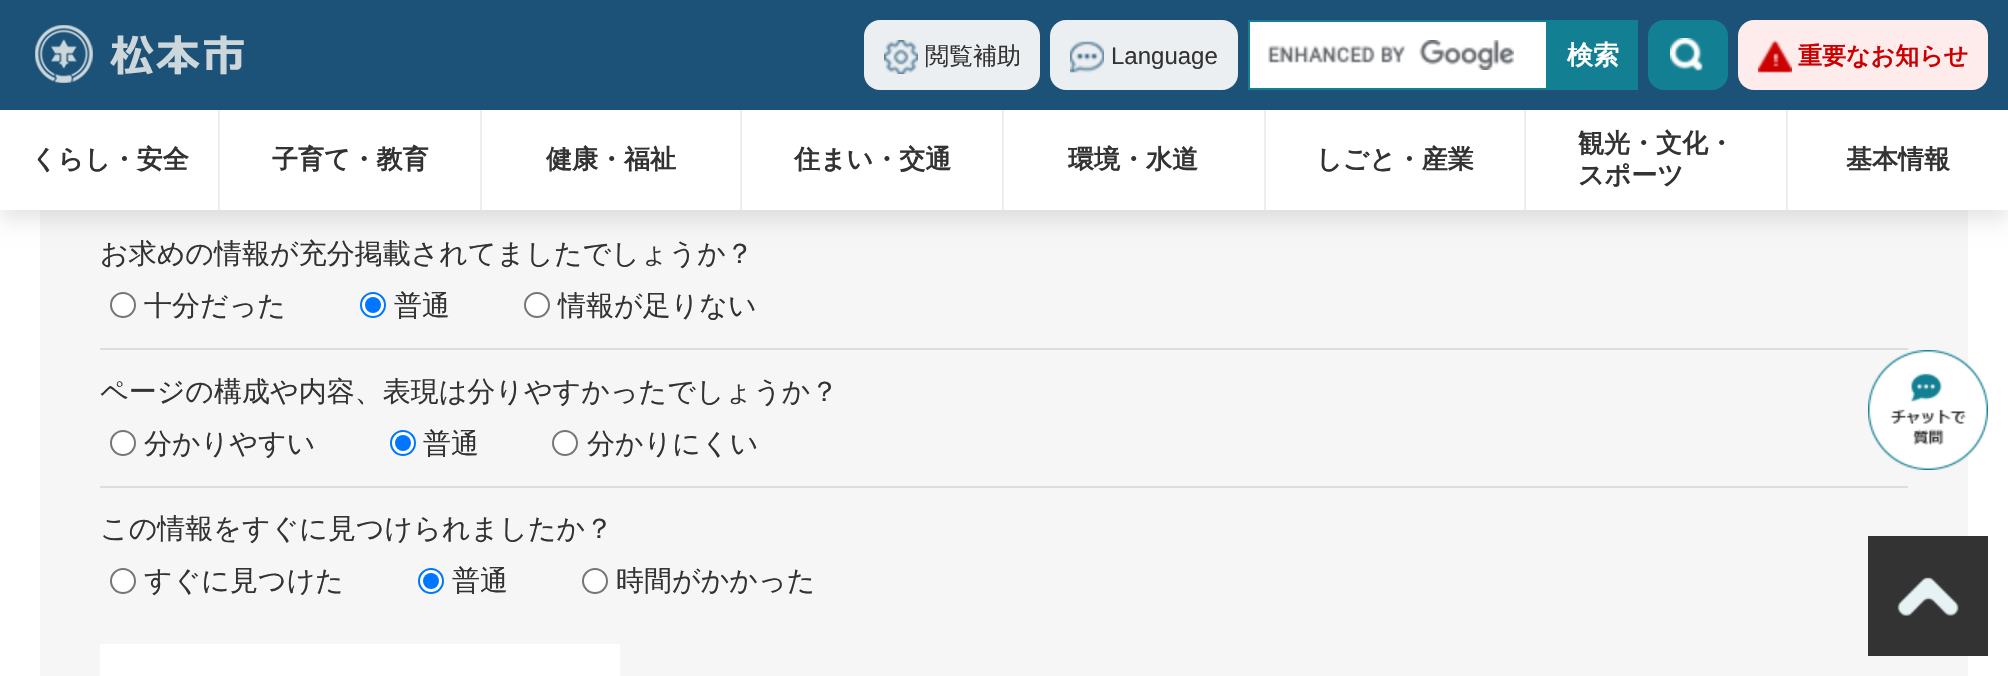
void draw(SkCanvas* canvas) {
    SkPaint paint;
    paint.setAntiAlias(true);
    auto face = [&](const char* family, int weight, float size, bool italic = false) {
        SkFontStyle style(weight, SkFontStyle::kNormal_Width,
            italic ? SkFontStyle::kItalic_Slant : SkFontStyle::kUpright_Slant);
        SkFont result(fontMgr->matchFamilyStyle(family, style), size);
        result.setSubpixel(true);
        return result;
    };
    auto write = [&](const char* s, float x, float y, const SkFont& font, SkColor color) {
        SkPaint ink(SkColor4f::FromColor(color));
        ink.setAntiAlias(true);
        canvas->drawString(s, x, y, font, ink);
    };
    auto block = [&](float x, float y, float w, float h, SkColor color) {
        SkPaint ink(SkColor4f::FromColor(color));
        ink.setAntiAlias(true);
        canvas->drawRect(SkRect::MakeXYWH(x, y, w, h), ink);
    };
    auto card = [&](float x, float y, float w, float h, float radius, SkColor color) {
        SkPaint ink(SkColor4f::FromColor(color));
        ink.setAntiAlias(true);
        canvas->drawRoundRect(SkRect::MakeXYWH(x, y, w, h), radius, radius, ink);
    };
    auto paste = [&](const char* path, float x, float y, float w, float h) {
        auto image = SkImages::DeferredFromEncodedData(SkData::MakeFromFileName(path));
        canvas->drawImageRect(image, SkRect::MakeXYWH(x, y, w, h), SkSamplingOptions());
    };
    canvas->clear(SK_ColorWHITE);
    block(40, 210, 1928, 466, SkColorSetRGB(246, 246, 246));
    paint.setColor(SkColorSetARGB(26, 0, 0, 0));
    paint.setMaskFilter(SkMaskFilter::MakeBlur(kNormal_SkBlurStyle, 10));
    canvas->drawRect(SkRect::MakeXYWH(0, 10, 2008, 210), paint);
    paint.setMaskFilter(nullptr);
    block(0, 0, 2008, 110, SkColorSetRGB(28, 82, 120));
    paste("pic1.png", 35, 25, 209, 58);
    card(864, 20, 176, 70, 16, SkColorSetRGB(235, 239, 241));
    paste("pic2.png", 884, 40, 34, 34);
    auto kFont1 = face("WenQuanYi Zen Hei", 500, 24);
    write("閲覧補助", 925, 64, kFont1, SkColorSetRGB(51, 51, 51));
    card(1050, 20, 188, 70, 16, SkColorSetRGB(235, 239, 241));
    paste("pic3.png", 1070, 41, 34, 32);
    auto kFont2 = face("Liberation Sans", 400, 24);
    write("Language", 1111, 64, kFont2, SkColorSetRGB(51, 51, 51));
    block(1250, 22, 296, 66, SK_ColorWHITE);
    paste("pic4.png", 1268, 40, 246, 30);
    paint.setStyle(SkPaint::kStroke_Style);
    paint.setStrokeWidth(2);
    paint.setColor(SkColorSetRGB(19, 127, 146));
    canvas->drawRect(SkRect::MakeXYWH(1249, 21, 298, 68), paint);
    block(1548, 20, 90, 70, SkColorSetRGB(19, 127, 146));
    auto kFont3 = face("WenQuanYi Zen Hei", 700, 26);
    write("検索", 1567, 64, kFont3, SK_ColorWHITE);
    card(1648, 20, 80, 70, 16, SkColorSetRGB(19, 127, 146));
    paste("pic5.png", 1670, 38, 33, 33);
    card(1738, 20, 250, 70, 16, SkColorSetRGB(254, 235, 235));
    paste("pic6.png", 1758, 40, 34, 33);
    auto kFont4 = face("WenQuanYi Zen Hei", 700, 24);
    write("重要なお知らせ", 1798, 64, kFont4, SkColorSetRGB(204, 0, 0));
    block(218, 110, 2, 100, SkColorSetRGB(235, 239, 241));
    block(0, 110, 218, 100, SK_ColorWHITE);
    write("くらし・安全", 31, 168, kFont3, SkColorSetRGB(51, 51, 51));
    block(480, 110, 2, 100, SkColorSetRGB(235, 239, 241));
    block(220, 110, 260, 100, SK_ColorWHITE);
    write("子育て・教育", 272, 168, kFont3, SkColorSetRGB(51, 51, 51));
    block(740, 110, 2, 100, SkColorSetRGB(235, 239, 241));
    block(482, 110, 258, 100, SK_ColorWHITE);
    write("健康・福祉", 546, 168, kFont3, SkColorSetRGB(51, 51, 51));
    block(1002, 110, 2, 100, SkColorSetRGB(235, 239, 241));
    block(742, 110, 260, 100, SK_ColorWHITE);
    write("住まい・交通", 794, 168, kFont3, SkColorSetRGB(51, 51, 51));
    block(1264, 110, 2, 100, SkColorSetRGB(235, 239, 241));
    block(1004, 110, 260, 100, SK_ColorWHITE);
    write("環境・水道", 1068, 168, kFont3, SkColorSetRGB(51, 51, 51));
    block(1524, 110, 2, 100, SkColorSetRGB(235, 239, 241));
    block(1266, 110, 258, 100, SK_ColorWHITE);
    write("しごと・産業", 1316, 168, kFont3, SkColorSetRGB(51, 51, 51));
    block(1786, 110, 2, 100, SkColorSetRGB(235, 239, 241));
    block(1526, 110, 260, 100, SK_ColorWHITE);
    write("観光・文化・", 1578, 152, kFont3, SkColorSetRGB(51, 51, 51));
    write("スポーツ", 1578, 184, kFont3, SkColorSetRGB(51, 51, 51));
    block(1788, 110, 220, 100, SK_ColorWHITE);
    write("基本情報", 1846, 168, kFont3, SkColorSetRGB(51, 51, 51));
    block(100, 348, 1808, 2, SkColorSetRGB(221, 221, 221));
    auto kFont5 = face("WenQuanYi Zen Hei", 500, 28);
    write("お求めの情報が充分掲載されてましたでしょうか？", 100, 263, kFont5, SkColorSetRGB(51, 51, 51));
    paint.setStyle(SkPaint::kFill_Style);
    paint.setColor(SK_ColorWHITE);
    canvas->drawCircle(123, 305, 12, paint);
    paint.setStyle(SkPaint::kStroke_Style);
    paint.setColor(SkColorSetRGB(118, 118, 118));
    canvas->drawCircle(123, 305, 12, paint);
    write("十分だった", 144, 315, kFont5, SkColorSetRGB(51, 51, 51));
    paint.setStyle(SkPaint::kFill_Style);
    paint.setColor(SK_ColorWHITE);
    canvas->drawCircle(373, 305, 12, paint);
    paint.setStyle(SkPaint::kStroke_Style);
    paint.setColor(SkColorSetRGB(0, 117, 255));
    canvas->drawCircle(373, 305, 12, paint);
    paint.setStyle(SkPaint::kFill_Style);
    canvas->drawCircle(373, 305, 8, paint);
    write("普通", 394, 315, kFont5, SkColorSetRGB(51, 51, 51));
    paint.setColor(SK_ColorWHITE);
    canvas->drawCircle(537, 305, 12, paint);
    paint.setStyle(SkPaint::kStroke_Style);
    paint.setColor(SkColorSetRGB(118, 118, 118));
    canvas->drawCircle(537, 305, 12, paint);
    write("情報が足りない", 558, 315, kFont5, SkColorSetRGB(51, 51, 51));
    block(100, 486, 1808, 2, SkColorSetRGB(221, 221, 221));
    write("ページの構成や内容、表現は分りやすかったでしょうか？", 100, 401, kFont5, SkColorSetRGB(51, 51, 51));
    paint.setStyle(SkPaint::kFill_Style);
    paint.setColor(SK_ColorWHITE);
    canvas->drawCircle(123, 443, 12, paint);
    paint.setStyle(SkPaint::kStroke_Style);
    paint.setColor(SkColorSetRGB(118, 118, 118));
    canvas->drawCircle(123, 443, 12, paint);
    write("分かりやすい", 144, 453, kFont5, SkColorSetRGB(51, 51, 51));
    paint.setStyle(SkPaint::kFill_Style);
    paint.setColor(SK_ColorWHITE);
    canvas->drawCircle(403, 443, 12, paint);
    paint.setStyle(SkPaint::kStroke_Style);
    paint.setColor(SkColorSetRGB(0, 117, 255));
    canvas->drawCircle(403, 443, 12, paint);
    paint.setStyle(SkPaint::kFill_Style);
    canvas->drawCircle(403, 443, 8, paint);
    write("普通", 423, 453, kFont5, SkColorSetRGB(51, 51, 51));
    paint.setColor(SK_ColorWHITE);
    canvas->drawCircle(565, 443, 12, paint);
    paint.setStyle(SkPaint::kStroke_Style);
    paint.setColor(SkColorSetRGB(118, 118, 118));
    canvas->drawCircle(565, 443, 12, paint);
    write("分かりにくい", 587, 453, kFont5, SkColorSetRGB(51, 51, 51));
    write("この情報をすぐに見つけられましたか？", 100, 538, kFont5, SkColorSetRGB(51, 51, 51));
    paint.setStyle(SkPaint::kFill_Style);
    paint.setColor(SK_ColorWHITE);
    canvas->drawCircle(123, 581, 12, paint);
    paint.setStyle(SkPaint::kStroke_Style);
    paint.setColor(SkColorSetRGB(118, 118, 118));
    canvas->drawCircle(123, 581, 12, paint);
    write("すぐに見つけた", 144, 590, kFont5, SkColorSetRGB(51, 51, 51));
    paint.setStyle(SkPaint::kFill_Style);
    paint.setColor(SK_ColorWHITE);
    canvas->drawCircle(431, 581, 12, paint);
    paint.setStyle(SkPaint::kStroke_Style);
    paint.setColor(SkColorSetRGB(0, 117, 255));
    canvas->drawCircle(431, 581, 12, paint);
    paint.setStyle(SkPaint::kFill_Style);
    canvas->drawCircle(431, 581, 8, paint);
    write("普通", 452, 590, kFont5, SkColorSetRGB(51, 51, 51));
    paint.setColor(SK_ColorWHITE);
    canvas->drawCircle(595, 581, 12, paint);
    paint.setStyle(SkPaint::kStroke_Style);
    paint.setColor(SkColorSetRGB(118, 118, 118));
    canvas->drawCircle(595, 581, 12, paint);
    write("時間がかかった", 616, 590, kFont5, SkColorSetRGB(51, 51, 51));
    block(100, 644, 520, 32, SK_ColorWHITE);
    paste("pic7.png", 1868, 536, 120, 120);
    paste("pic8.png", 1868, 350, 120, 120);
}
